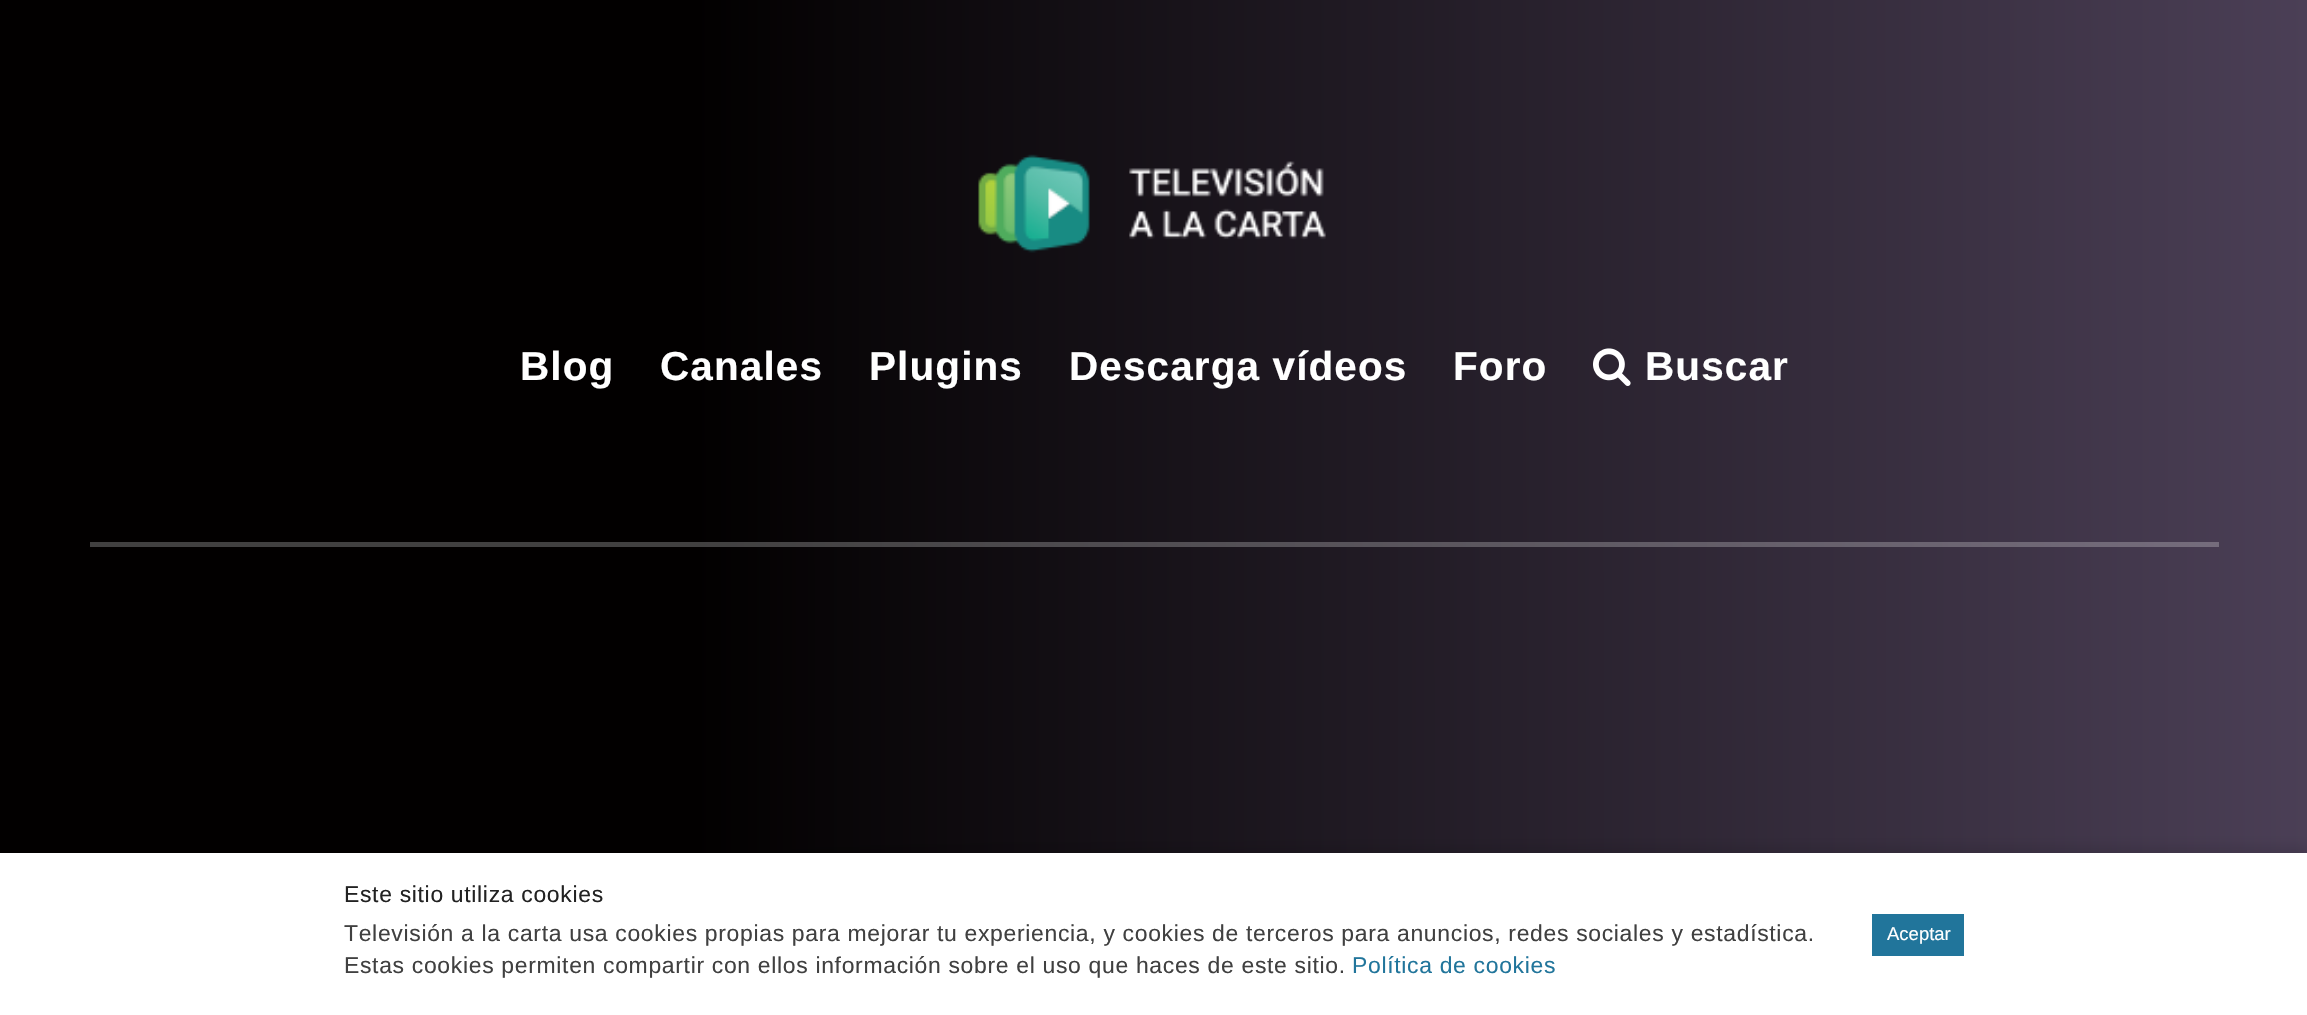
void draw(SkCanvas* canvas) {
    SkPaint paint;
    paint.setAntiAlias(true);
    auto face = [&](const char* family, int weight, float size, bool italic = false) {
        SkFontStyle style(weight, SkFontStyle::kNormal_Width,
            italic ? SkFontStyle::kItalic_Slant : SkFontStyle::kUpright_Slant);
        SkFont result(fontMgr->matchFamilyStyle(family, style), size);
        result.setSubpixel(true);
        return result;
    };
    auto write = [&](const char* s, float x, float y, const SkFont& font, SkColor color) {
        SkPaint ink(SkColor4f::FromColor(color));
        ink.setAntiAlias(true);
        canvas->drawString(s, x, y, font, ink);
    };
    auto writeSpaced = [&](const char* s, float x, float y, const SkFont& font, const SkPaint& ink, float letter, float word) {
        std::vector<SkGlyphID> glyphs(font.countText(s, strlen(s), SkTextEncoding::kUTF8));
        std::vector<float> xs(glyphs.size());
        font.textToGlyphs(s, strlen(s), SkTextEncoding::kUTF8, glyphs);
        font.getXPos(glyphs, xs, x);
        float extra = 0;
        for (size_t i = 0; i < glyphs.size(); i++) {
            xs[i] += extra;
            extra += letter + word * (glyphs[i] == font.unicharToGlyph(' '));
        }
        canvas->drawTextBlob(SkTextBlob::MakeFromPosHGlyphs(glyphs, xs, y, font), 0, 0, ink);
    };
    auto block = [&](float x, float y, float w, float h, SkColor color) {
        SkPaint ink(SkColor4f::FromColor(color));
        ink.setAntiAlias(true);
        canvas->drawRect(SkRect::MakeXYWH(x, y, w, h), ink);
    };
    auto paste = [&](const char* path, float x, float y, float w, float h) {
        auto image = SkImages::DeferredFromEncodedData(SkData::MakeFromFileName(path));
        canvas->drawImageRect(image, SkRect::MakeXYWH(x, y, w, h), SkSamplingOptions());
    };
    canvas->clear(SK_ColorWHITE);
    {
        const SkColor colors[] = {SkColorSetRGB(2, 0, 0), SkColorSetRGB(75, 63, 86)};
        const float stops[] = {0.3f, 1};
        const SkPoint ends[] = {{0, 509}, {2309, 508}};
        paint.setShader(SkGradientShader::MakeLinear(ends, colors, stops, 2, SkTileMode::kClamp));
        paint.setAlpha(255);
    }
    canvas->drawRect(SkRect::MakeXYWH(0, 0, 2307, 853), paint);
    {
        const SkColor colors[] = {SkColorSetRGB(65, 64, 64), SkColorSetRGB(120, 111, 128)};
        const float stops[] = {0.3f, 1};
        const SkPoint ends[] = {{0, 509}, {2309, 508}};
        paint.setShader(SkGradientShader::MakeLinear(ends, colors, stops, 2, SkTileMode::kClamp));
        paint.setAlpha(255);
    }
    canvas->drawRect(SkRect::MakeXYWH(90, 542, 2129, 5), paint);
    paste("pic1.png", 978, 154, 348, 99);
    auto kFont1 = face("Liberation Sans", 700, 40.5f);
    paint.setShader(nullptr);
    paint.setColor(SK_ColorWHITE);
    writeSpaced("Blog", 520, 380, kFont1, paint, 1.1f, 0);
    writeSpaced("Canales", 660, 380, kFont1, paint, 1.1f, 0);
    writeSpaced("Plugins", 869, 380, kFont1, paint, 1.1f, 0);
    writeSpaced("Descarga vídeos", 1069, 380, kFont1, paint, 1.1f, 0);
    writeSpaced("Foro", 1453, 380, kFont1, paint, 1.1f, 0);
    paste("pic2.png", 1593, 348, 38, 38);
    writeSpaced("Buscar", 1645, 380, kFont1, paint, 1.1f, 0);
    paint.setColor(SkColorSetARGB(26, 0, 0, 0));
    paint.setMaskFilter(SkMaskFilter::MakeBlur(kNormal_SkBlurStyle, 5.5f));
    canvas->drawRect(SkRect::MakeXYWH(0, 846, 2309, 164), paint);
    paint.setMaskFilter(nullptr);
    block(0, 853, 2307, 162, SK_ColorWHITE);
    auto kFont2 = face("Liberation Sans", 400, 22.95f);
    paint.setColor(SkColorSetRGB(34, 34, 34));
    writeSpaced("Este sitio utiliza cookies", 344, 902, kFont2, paint, 0.67f, 0);
    paint.setColor(SkColorSetRGB(64, 64, 64));
    writeSpaced("Televisión a la carta usa cookies propias para mejorar tu experiencia, y cookies de terceros para anuncios, redes sociales y estadística.", 344, 941, kFont2, paint, 0.67f, 0);
    writeSpaced("Estas cookies permiten compartir con ellos información sobre el uso que haces de este sitio.", 344, 973, kFont2, paint, 0.67f, 0);
    paint.setColor(SkColorSetRGB(33, 117, 155));
    writeSpaced("Política de cookies", 1352, 973, kFont2, paint, 0.67f, 0);
    block(1872, 914, 92, 42, SkColorSetRGB(33, 117, 155));
    auto kFont3 = face("Liberation Sans", 400, 18.5f);
    write("Aceptar", 1887, 940, kFont3, SK_ColorWHITE);
}
